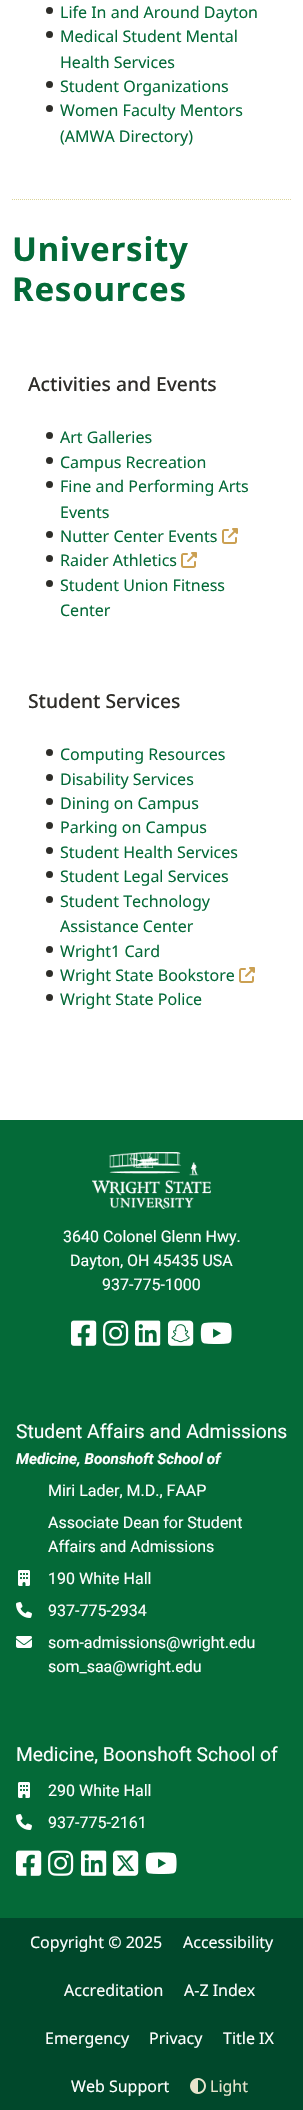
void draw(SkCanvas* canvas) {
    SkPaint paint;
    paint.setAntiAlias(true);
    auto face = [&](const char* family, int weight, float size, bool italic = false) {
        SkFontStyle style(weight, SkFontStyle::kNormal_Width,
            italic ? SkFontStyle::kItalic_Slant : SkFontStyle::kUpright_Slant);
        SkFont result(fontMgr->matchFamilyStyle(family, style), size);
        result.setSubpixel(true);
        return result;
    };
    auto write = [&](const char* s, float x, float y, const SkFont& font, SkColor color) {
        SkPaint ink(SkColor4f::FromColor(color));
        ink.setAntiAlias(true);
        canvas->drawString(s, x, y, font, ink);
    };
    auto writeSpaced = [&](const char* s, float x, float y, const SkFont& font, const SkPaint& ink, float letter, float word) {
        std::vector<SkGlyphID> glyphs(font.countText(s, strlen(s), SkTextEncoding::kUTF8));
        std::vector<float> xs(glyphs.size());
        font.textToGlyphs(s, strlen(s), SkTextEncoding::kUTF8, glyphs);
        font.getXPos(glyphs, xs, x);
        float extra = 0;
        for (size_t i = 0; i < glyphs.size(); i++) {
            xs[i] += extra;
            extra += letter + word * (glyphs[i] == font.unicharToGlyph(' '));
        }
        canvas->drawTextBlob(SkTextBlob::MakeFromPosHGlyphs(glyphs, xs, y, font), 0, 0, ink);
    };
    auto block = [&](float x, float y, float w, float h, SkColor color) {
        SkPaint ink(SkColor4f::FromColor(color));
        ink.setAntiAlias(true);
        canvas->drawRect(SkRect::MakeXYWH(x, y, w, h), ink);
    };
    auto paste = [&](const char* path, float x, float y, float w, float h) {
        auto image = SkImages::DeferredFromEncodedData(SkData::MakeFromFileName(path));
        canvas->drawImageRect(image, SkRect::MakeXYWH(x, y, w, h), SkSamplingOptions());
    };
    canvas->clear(SK_ColorWHITE);
    paint.setColor(SkColorSetRGB(46, 45, 41));
    canvas->drawCircle(49.5f, 10.5f, 3.5f, paint);
    auto kFont1 = face("Noto Sans", 400, 16);
    write("Life In and Around Dayton", 60, 18, kFont1, SkColorSetRGB(4, 106, 56));
    canvas->drawCircle(49.5f, 34.5f, 3.5f, paint);
    write("Medical Student Mental", 60, 42, kFont1, SkColorSetRGB(4, 106, 56));
    write("Health Services", 60, 68, kFont1, SkColorSetRGB(4, 106, 56));
    canvas->drawCircle(49.5f, 84.5f, 3.5f, paint);
    write("Student Organizations", 60, 92, kFont1, SkColorSetRGB(4, 106, 56));
    canvas->drawCircle(49.5f, 108.5f, 3.5f, paint);
    write("Women Faculty Mentors", 60, 116, kFont1, SkColorSetRGB(4, 106, 56));
    write("(AMWA Directory)", 60, 142, kFont1, SkColorSetRGB(4, 106, 56));
    paint.setStyle(SkPaint::kStroke_Style);
    paint.setStrokeWidth(1);
    paint.setColor(SkColorSetRGB(220, 213, 154));
    paint.setPathEffect(SkDashPathEffect::Make({{1, 1}}, 0));
    canvas->drawPath(SkPathBuilder().moveTo(12, 199.5f).lineTo(291, 199.5f).detach(), paint);
    paint.setPathEffect(nullptr);
    auto kFont2 = face("Noto Sans", 700, 33);
    paint.setStyle(SkPaint::kFill_Style);
    paint.setColor(SkColorSetRGB(4, 106, 56));
    writeSpaced("University", 12, 261, kFont2, paint, 0.75f, 0);
    writeSpaced("Resources", 12, 301, kFont2, paint, 0.75f, 0);
    auto kFont3 = face("Noto Sans", 500, 19.25f);
    write("Activities and Events", 28, 391, kFont3, SkColorSetRGB(46, 45, 41));
    paint.setColor(SkColorSetRGB(46, 45, 41));
    canvas->drawCircle(49.5f, 435.5f, 3.5f, paint);
    write("Art Galleries", 60, 443, kFont1, SkColorSetRGB(4, 106, 56));
    canvas->drawCircle(49.5f, 460.5f, 3.5f, paint);
    write("Campus Recreation", 60, 468, kFont1, SkColorSetRGB(4, 106, 56));
    canvas->drawCircle(49.5f, 484.5f, 3.5f, paint);
    write("Fine and Performing Arts", 60, 492, kFont1, SkColorSetRGB(4, 106, 56));
    write("Events", 60, 518, kFont1, SkColorSetRGB(4, 106, 56));
    canvas->drawCircle(49.5f, 534.5f, 3.5f, paint);
    write("Nutter Center Events", 60, 542, kFont1, SkColorSetRGB(4, 106, 56));
    paste("pic1.png", 222, 528, 16, 16);
    canvas->drawCircle(49.5f, 558.5f, 3.5f, paint);
    write("Raider Athletics", 60, 566, kFont1, SkColorSetRGB(4, 106, 56));
    paste("pic1.png", 181, 552, 16, 16);
    canvas->drawCircle(49.5f, 583.5f, 3.5f, paint);
    write("Student Union Fitness", 60, 591, kFont1, SkColorSetRGB(4, 106, 56));
    write("Center", 60, 616, kFont1, SkColorSetRGB(4, 106, 56));
    write("Student Services", 28, 708, kFont3, SkColorSetRGB(46, 45, 41));
    canvas->drawCircle(49.5f, 752.5f, 3.5f, paint);
    write("Computing Resources", 60, 760, kFont1, SkColorSetRGB(4, 106, 56));
    canvas->drawCircle(49.5f, 777.5f, 3.5f, paint);
    write("Disability Services", 60, 785, kFont1, SkColorSetRGB(4, 106, 56));
    canvas->drawCircle(49.5f, 801.5f, 3.5f, paint);
    write("Dining on Campus", 60, 809, kFont1, SkColorSetRGB(4, 106, 56));
    canvas->drawCircle(49.5f, 825.5f, 3.5f, paint);
    write("Parking on Campus", 60, 833, kFont1, SkColorSetRGB(4, 106, 56));
    canvas->drawCircle(49.5f, 850.5f, 3.5f, paint);
    write("Student Health Services", 60, 858, kFont1, SkColorSetRGB(4, 106, 56));
    canvas->drawCircle(49.5f, 874.5f, 3.5f, paint);
    write("Student Legal Services", 60, 882, kFont1, SkColorSetRGB(4, 106, 56));
    canvas->drawCircle(49.5f, 899.5f, 3.5f, paint);
    write("Student Technology", 60, 907, kFont1, SkColorSetRGB(4, 106, 56));
    write("Assistance Center", 60, 932, kFont1, SkColorSetRGB(4, 106, 56));
    canvas->drawCircle(49.5f, 949.5f, 3.5f, paint);
    write("Wright1 Card", 60, 957, kFont1, SkColorSetRGB(4, 106, 56));
    canvas->drawCircle(49.5f, 973.5f, 3.5f, paint);
    write("Wright State Bookstore", 60, 981, kFont1, SkColorSetRGB(4, 106, 56));
    paste("pic1.png", 239, 967, 16, 16);
    canvas->drawCircle(49.5f, 997.5f, 3.5f, paint);
    write("Wright State Police", 60, 1005, kFont1, SkColorSetRGB(4, 106, 56));
    block(0, 1120, 303, 798, SkColorSetRGB(4, 106, 56));
    paste("pic2.png", 92, 1152, 119, 57);
    auto kFont4 = face("Roboto", 400, 16);
    write("3640 Colonel Glenn Hwy.", 63, 1242, kFont4, SK_ColorWHITE);
    write("Dayton, OH 45435 USA", 70, 1266, kFont4, SK_ColorWHITE);
    write("937-775-1000", 102, 1290, kFont4, SK_ColorWHITE);
    paste("pic3.png", 71, 1320, 26, 26);
    paste("pic4.png", 103, 1320, 26, 26);
    paste("pic5.png", 135, 1320, 26, 26);
    paste("pic6.png", 168, 1320, 26, 26);
    paste("pic7.png", 200, 1322, 32, 22);
    auto kFont5 = face("Roboto", 400, 19.25f);
    write("Student Affairs and Admissions", 16, 1438, kFont5, SK_ColorWHITE);
    auto kFont6 = face("Roboto", 700, 15.25f, true);
    write("Medicine, Boonshoft School of", 16, 1464, kFont6, SK_ColorWHITE);
    write("Miri Lader, M.D., FAAP", 48, 1496, kFont4, SK_ColorWHITE);
    write("Associate Dean for Student", 48, 1528, kFont4, SK_ColorWHITE);
    write("Affairs and Admissions", 48, 1552, kFont4, SK_ColorWHITE);
    paste("pic8.png", 18, 1570, 12, 16);
    write("190 White Hall", 48, 1584, kFont4, SK_ColorWHITE);
    paste("pic9.png", 16, 1602, 16, 16);
    write("937-775-2934", 48, 1616, kFont4, SK_ColorWHITE);
    paste("pic10.png", 16, 1636, 16, 12);
    write("som-admissions@wright.edu", 48, 1648, kFont4, SK_ColorWHITE);
    write("som_saa@wright.edu", 48, 1672, kFont4, SK_ColorWHITE);
    write("Medicine, Boonshoft School of", 16, 1761, kFont5, SK_ColorWHITE);
    paste("pic8.png", 18, 1782, 12, 16);
    write("290 White Hall", 48, 1796, kFont4, SK_ColorWHITE);
    paste("pic9.png", 16, 1814, 16, 16);
    write("937-775-2161", 48, 1828, kFont4, SK_ColorWHITE);
    paste("pic3.png", 16, 1850, 26, 26);
    paste("pic4.png", 48, 1850, 26, 26);
    paste("pic5.png", 81, 1850, 26, 26);
    paste("pic11.png", 113, 1850, 26, 26);
    paste("pic7.png", 145, 1852, 32, 22);
    block(0, 1918, 303, 192, SkColorSetRGB(0, 72, 43));
    write("Copyright © 2025", 30, 1948, kFont1, SK_ColorWHITE);
    write("Accessibility", 183, 1948, kFont1, SK_ColorWHITE);
    write("Accreditation", 64, 1996, kFont1, SK_ColorWHITE);
    write("A-Z Index", 184, 1996, kFont1, SK_ColorWHITE);
    write("Emergency", 45, 2044, kFont1, SK_ColorWHITE);
    write("Privacy", 149, 2044, kFont1, SK_ColorWHITE);
    write("Title IX", 223, 2044, kFont1, SK_ColorWHITE);
    write("Web Support", 71, 2092, kFont1, SK_ColorWHITE);
    paste("pic12.png", 190, 2078, 16, 16);
    write("Light", 210, 2092, kFont1, SkColorSetRGB(231, 227, 203));
}
